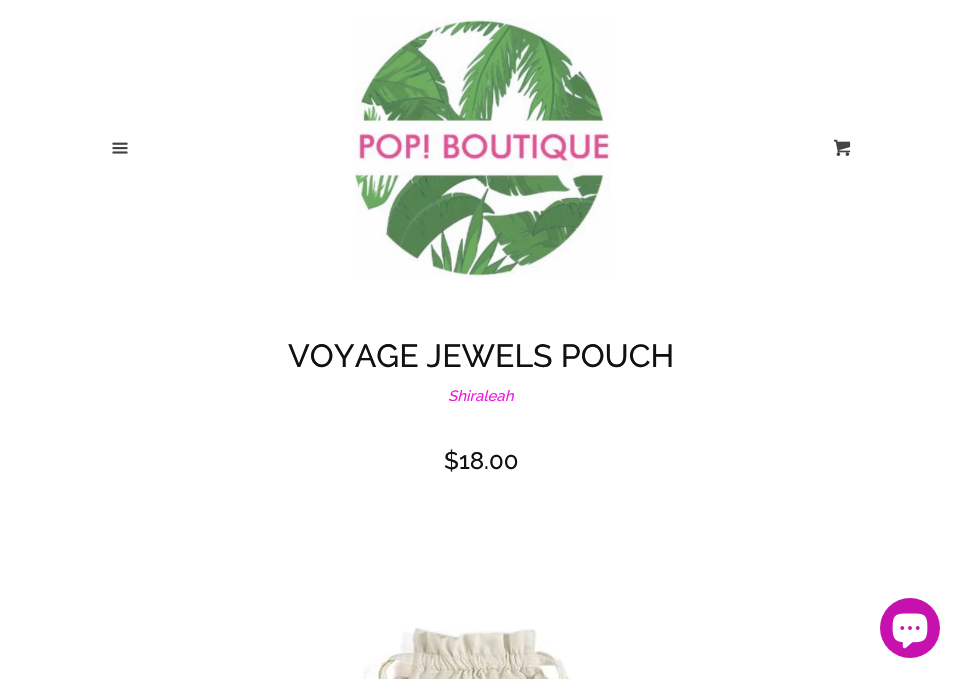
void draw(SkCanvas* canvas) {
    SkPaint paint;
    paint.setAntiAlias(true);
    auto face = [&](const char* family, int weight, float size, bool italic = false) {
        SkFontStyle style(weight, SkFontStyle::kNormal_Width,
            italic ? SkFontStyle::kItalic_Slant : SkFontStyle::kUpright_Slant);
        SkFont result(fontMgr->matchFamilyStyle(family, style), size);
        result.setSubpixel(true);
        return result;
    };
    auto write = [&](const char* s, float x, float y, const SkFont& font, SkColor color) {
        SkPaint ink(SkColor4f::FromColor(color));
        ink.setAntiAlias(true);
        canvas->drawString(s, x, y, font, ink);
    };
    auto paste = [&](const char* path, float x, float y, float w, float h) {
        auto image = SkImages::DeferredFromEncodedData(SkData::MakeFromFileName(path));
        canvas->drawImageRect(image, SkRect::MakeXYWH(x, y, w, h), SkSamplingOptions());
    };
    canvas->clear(SK_ColorWHITE);
    paste("pic1.png", 112, 142, 16, 12);
    paste("pic2.png", 353, 18, 258, 260);
    paste("pic3.png", 833, 139, 18, 17);
    auto kFont1 = face("Raleway", 500, 32);
    write("VOYAGE JEWELS POUCH", 288, 367, kFont1, SkColorSetRGB(17, 17, 17));
    auto kFont2 = face("Raleway", 500, 15, true);
    write("Shiraleah", 448, 401, kFont2, SkColorSetRGB(235, 29, 224));
    auto kFont3 = face("Raleway", 500, 24);
    write("$18.00", 444, 469, kFont3, SkColorSetRGB(17, 17, 17));
    paste("pic4.png", 363, 627, 209, 52);
    paint.setColor(SkColorSetRGB(199, 17, 174));
    canvas->drawCircle(910, 628, 30, paint);
    paste("pic5.png", 892, 613, 36, 36);
}
